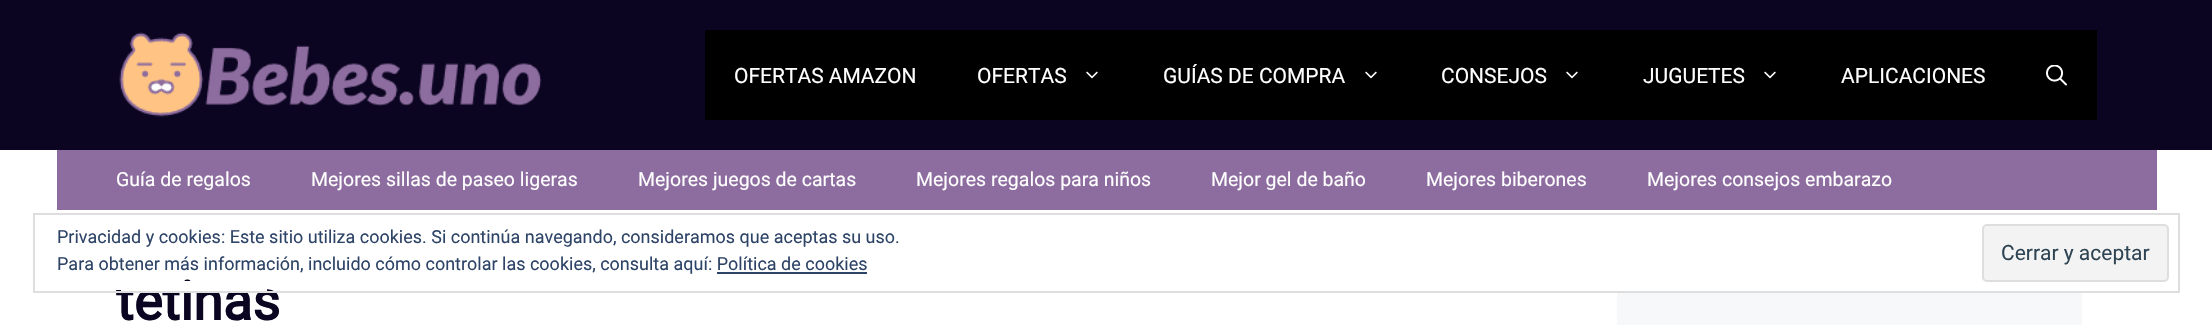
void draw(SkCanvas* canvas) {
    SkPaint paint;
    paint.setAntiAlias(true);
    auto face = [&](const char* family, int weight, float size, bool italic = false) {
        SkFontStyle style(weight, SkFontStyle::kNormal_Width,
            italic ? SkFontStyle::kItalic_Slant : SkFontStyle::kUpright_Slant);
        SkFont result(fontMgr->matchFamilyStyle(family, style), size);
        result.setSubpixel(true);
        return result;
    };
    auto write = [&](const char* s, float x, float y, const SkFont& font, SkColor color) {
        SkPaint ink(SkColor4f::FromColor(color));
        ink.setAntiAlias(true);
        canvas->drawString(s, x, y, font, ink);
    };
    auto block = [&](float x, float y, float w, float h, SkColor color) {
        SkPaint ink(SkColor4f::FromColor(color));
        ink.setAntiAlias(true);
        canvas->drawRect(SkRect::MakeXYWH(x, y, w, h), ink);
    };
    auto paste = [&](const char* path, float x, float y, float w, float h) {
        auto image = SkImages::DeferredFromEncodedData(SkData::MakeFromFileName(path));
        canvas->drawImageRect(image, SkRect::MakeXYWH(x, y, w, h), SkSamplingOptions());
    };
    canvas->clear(SK_ColorWHITE);
    block(0, 0, 2212, 150, SkColorSetRGB(11, 5, 33));
    paste("pic1.png", 119, 32, 423, 85);
    block(705, 30, 1392, 90, SK_ColorBLACK);
    auto kFont1 = face("Roboto", 400, 21);
    write("OFERTAS AMAZON", 734, 83, kFont1, SK_ColorWHITE);
    write("OFERTAS", 977, 83, kFont1, SK_ColorWHITE);
    paste("pic2.png", 1086, 71, 12, 8);
    write("GUÍAS DE COMPRA", 1163, 83, kFont1, SK_ColorWHITE);
    paste("pic2.png", 1365, 71, 12, 8);
    write("CONSEJOS", 1441, 83, kFont1, SK_ColorWHITE);
    paste("pic2.png", 1566, 71, 12, 8);
    write("JUGUETES", 1643, 83, kFont1, SK_ColorWHITE);
    paste("pic2.png", 1764, 71, 12, 8);
    write("APLICACIONES", 1841, 83, kFont1, SK_ColorWHITE);
    paste("pic3.png", 2046, 65, 21, 21);
    block(57, 150, 2100, 60, SkColorSetRGB(141, 108, 159));
    auto kFont2 = face("Roboto", 400, 19.5f);
    write("Guía de regalos", 116, 186, kFont2, SK_ColorWHITE);
    write("Mejores sillas de paseo ligeras", 311, 186, kFont2, SK_ColorWHITE);
    write("Mejores juegos de cartas", 638, 186, kFont2, SK_ColorWHITE);
    write("Mejores regalos para niños", 916, 186, kFont2, SK_ColorWHITE);
    write("Mejor gel de baño", 1211, 186, kFont2, SK_ColorWHITE);
    write("Mejores biberones", 1426, 186, kFont2, SK_ColorWHITE);
    write("Mejores consejos embarazo", 1647, 186, kFont2, SK_ColorWHITE);
    auto kFont3 = face("Roboto", 700, 54);
    write("tetinas", 116, 320, kFont3, SkColorSetRGB(11, 5, 33));
    block(121, 281, 146, 10, SK_ColorWHITE);
    paint.setStyle(SkPaint::kStroke_Style);
    paint.setStrokeWidth(2);
    paint.setColor(SkColorSetRGB(222, 222, 222));
    canvas->drawRect(SkRect::MakeXYWH(34, 214, 2145, 78), paint);
    auto kFont4 = face("Roboto", 400, 18);
    write("Privacidad y cookies: Este sitio utiliza cookies. Si continúa navegando, consideramos que aceptas su uso.", 57, 243, kFont4, SkColorSetRGB(46, 68, 103));
    write("Para obtener más información, incluido cómo controlar las cookies, consulta aquí: Política de cookies", 57, 270, kFont4, SkColorSetRGB(46, 68, 103));
    paint.setStyle(SkPaint::kFill_Style);
    paint.setColor(SkColorSetRGB(243, 243, 243));
    canvas->drawRoundRect(SkRect::MakeXYWH(1983, 225, 185, 56), 4, 4, paint);
    paint.setStyle(SkPaint::kStroke_Style);
    paint.setColor(SkColorSetRGB(222, 222, 222));
    canvas->drawRoundRect(SkRect::MakeXYWH(1983, 225, 185, 56), 4, 4, paint);
    write("Cerrar y aceptar", 2001, 260, kFont1, SkColorSetRGB(46, 68, 83));
    block(717, 272, 150, 2, SkColorSetRGB(46, 68, 103));
    block(1617, 293, 465, 32, SkColorSetRGB(247, 248, 249));
}
